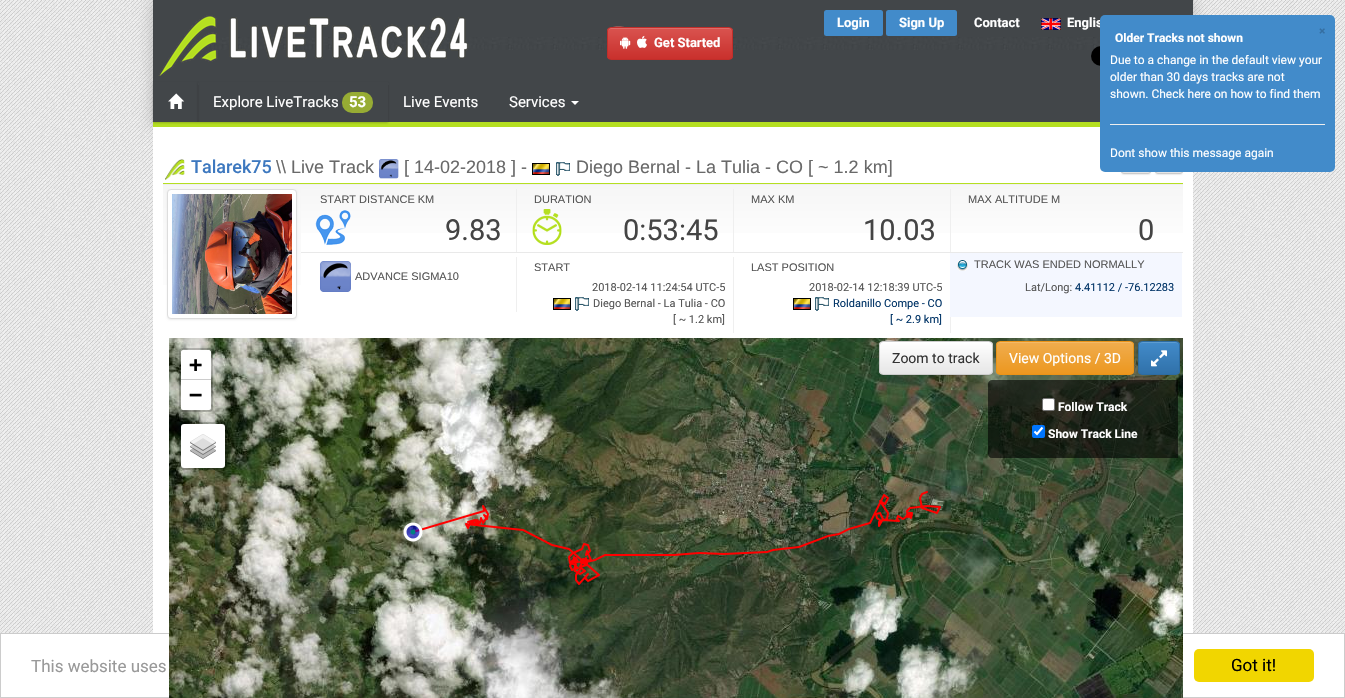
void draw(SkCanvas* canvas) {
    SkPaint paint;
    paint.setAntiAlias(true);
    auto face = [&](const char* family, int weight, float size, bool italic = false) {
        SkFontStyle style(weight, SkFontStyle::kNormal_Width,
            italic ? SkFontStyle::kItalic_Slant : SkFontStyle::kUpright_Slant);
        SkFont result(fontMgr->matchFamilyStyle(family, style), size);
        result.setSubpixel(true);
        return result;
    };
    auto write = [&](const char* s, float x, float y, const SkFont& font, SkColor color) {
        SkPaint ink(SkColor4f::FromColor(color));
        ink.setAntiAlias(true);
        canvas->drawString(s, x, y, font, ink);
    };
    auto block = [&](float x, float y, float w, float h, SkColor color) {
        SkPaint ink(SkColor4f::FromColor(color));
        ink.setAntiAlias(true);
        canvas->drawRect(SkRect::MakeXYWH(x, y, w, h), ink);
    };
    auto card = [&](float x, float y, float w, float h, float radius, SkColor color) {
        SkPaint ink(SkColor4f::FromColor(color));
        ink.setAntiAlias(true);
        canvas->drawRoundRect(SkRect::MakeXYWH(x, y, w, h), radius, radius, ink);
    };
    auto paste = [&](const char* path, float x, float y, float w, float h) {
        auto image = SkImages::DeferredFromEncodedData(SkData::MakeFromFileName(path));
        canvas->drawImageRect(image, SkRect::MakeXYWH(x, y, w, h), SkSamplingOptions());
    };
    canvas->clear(SK_ColorWHITE);
    paste("pic1.png", 0, 0, 1345, 633);
    paint.setColor(SkColorSetRGB(180, 180, 180));
    paint.setMaskFilter(SkMaskFilter::MakeBlur(kNormal_SkBlurStyle, 7.5f));
    canvas->drawRect(SkRect::MakeXYWH(153, 0, 1040, 127), paint);
    paint.setMaskFilter(nullptr);
    block(153, 0, 1040, 122, SkColorSetRGB(66, 70, 73));
    paste("pic2.png", 193, 37, 907, 13);
    paste("pic3.png", 158, 15, 311, 61);
    card(824, 10, 59, 26, 2.5f, SkColorSetRGB(66, 139, 202));
    auto kFont1 = face("Roboto", 700, 13);
    write("Login", 837, 27, kFont1, SK_ColorWHITE);
    card(886, 10, 71, 26, 2.5f, SkColorSetRGB(66, 139, 202));
    write("Sign Up", 899, 27, kFont1, SK_ColorWHITE);
    write("Contact", 974, 27, kFont1, SK_ColorWHITE);
    paste("pic4.png", 1041, 18, 20, 12);
    write("Englis", 1067, 27, kFont1, SK_ColorWHITE);
    canvas->save();
    canvas->clipPath(SkPathBuilder().moveTo(611, 27).lineTo(729, 27).cubicTo(731, 27, 733, 29, 733, 31).lineTo(733, 56).cubicTo(733, 58, 731, 60, 729, 60).lineTo(611, 60).cubicTo(609, 60, 607, 58, 607, 56).lineTo(607, 31).cubicTo(607, 29, 609, 27, 611, 27).close().detach(), true);
    {
        const SkColor colors[] = {SkColorSetRGB(217, 83, 79), SkColorSetRGB(201, 48, 44)};
        const float stops[] = {0, 1};
        const SkPoint ends[] = {{670, 28}, {670, 59}};
        paint.setShader(SkGradientShader::MakeLinear(ends, colors, stops, 2, SkTileMode::kClamp));
        paint.setAlpha(255);
    }
    canvas->drawRect(SkRect::MakeXYWH(607, 28, 126, 31), paint);
    canvas->restore();
    paint.setShader(nullptr);
    paint.setColor(SkColorSetRGB(223, 108, 105));
    canvas->drawPath(SkPathBuilder().moveTo(611, 29).lineTo(729, 29).cubicTo(731, 29, 732, 30, 732, 32).cubicTo(732, 30, 731, 28, 729, 28).lineTo(631, 28).cubicTo(630, 28, 608, 23, 608, 32).cubicTo(608, 30, 609, 29, 611, 29).close().detach(), paint);
    paint.setStyle(SkPaint::kStroke_Style);
    paint.setStrokeWidth(1);
    paint.setColor(SkColorSetRGB(193, 46, 42));
    canvas->drawRoundRect(SkRect::MakeXYWH(607.5f, 27.5f, 125, 32), 3.5f, 3.5f, paint);
    paste("pic5.png", 620, 36, 11, 13);
    paste("pic6.png", 637, 35, 10, 13);
    write("Get Started", 654, 47, kFont1, SK_ColorWHITE);
    paste("pic7.png", 1091, 46, 9, 20);
    block(153, 122, 947, 5, SkColorSetRGB(181, 223, 33));
    canvas->save();
    canvas->clipPath(SkPathBuilder(SkPathFillType::kEvenOdd).moveTo(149, 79).lineTo(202, 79).lineTo(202, 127).lineTo(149, 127).close().moveTo(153, 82).lineTo(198, 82).lineTo(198, 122).lineTo(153, 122).close().detach(), true);
    paint.setStyle(SkPaint::kFill_Style);
    paint.setColor(SkColorSetARGB(51, 0, 0, 0));
    paint.setMaskFilter(SkMaskFilter::MakeBlur(kNormal_SkBlurStyle, 1));
    canvas->drawRect(SkRect::MakeXYWH(153, 83, 45, 40), paint);
    paint.setMaskFilter(nullptr);
    canvas->restore();
    paste("pic8.png", 168, 93, 17, 16);
    canvas->save();
    canvas->clipPath(SkPathBuilder(SkPathFillType::kEvenOdd).moveTo(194, 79).lineTo(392, 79).lineTo(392, 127).lineTo(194, 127).close().moveTo(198, 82).lineTo(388, 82).lineTo(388, 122).lineTo(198, 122).close().detach(), true);
    paint.setMaskFilter(SkMaskFilter::MakeBlur(kNormal_SkBlurStyle, 1));
    canvas->drawRect(SkRect::MakeXYWH(198, 83, 190, 40), paint);
    paint.setMaskFilter(nullptr);
    canvas->restore();
    block(198, 83, 1, 2, SkColorSetRGB(66, 70, 73));
    auto kFont2 = face("Roboto", 400, 15);
    write("Explore LiveTracks", 213, 107, kFont2, SK_ColorWHITE);
    card(342, 92, 31, 21, 10, SkColorSetRGB(151, 172, 52));
    auto kFont3 = face("Roboto", 700, 15);
    write("53", 349, 107, kFont3, SK_ColorWHITE);
    block(388, 83, 1, 2, SkColorSetRGB(66, 70, 73));
    write("Live Events", 403, 107, kFont2, SK_ColorWHITE);
    write("Services", 509, 107, kFont2, SK_ColorWHITE);
    paint.setColor(SK_ColorWHITE);
    canvas->drawPath(SkPathBuilder().moveTo(571, 101).lineTo(579, 101).lineTo(575, 105).close().detach(), paint);
    block(153, 127, 1040, 506, SK_ColorWHITE);
    paste("pic9.png", 165, 159, 20, 21);
    block(163, 183, 1020, 1, SkColorSetRGB(181, 223, 33));
    auto kFont4 = face("Roboto", 500, 18);
    write("Talarek75", 191, 173, kFont4, SkColorSetRGB(61, 120, 191));
    auto kFont5 = face("Liberation Sans", 400, 18);
    write("\\\\ Live Track", 276, 173, kFont5, SkColorSetRGB(105, 105, 105));
    paste("pic10.png", 379, 159, 20, 20);
    write("[ 14-02-2018 ] -", 404, 173, kFont5, SkColorSetRGB(105, 105, 105));
    paste("pic11.png", 532, 163, 18, 12);
    paste("pic12.png", 556, 162, 14, 14);
    write("Diego Bernal - La Tulia - CO [ ~ 1.2 km]", 576, 173, kFont5, SkColorSetRGB(105, 105, 105));
    paint.setColor(SkColorSetARGB(18, 0, 0, 0));
    paint.setMaskFilter(SkMaskFilter::MakeBlur(kNormal_SkBlurStyle, 0.5f));
    canvas->drawRoundRect(SkRect::MakeXYWH(1121, 147, 30, 28), 3, 3, paint);
    paint.setMaskFilter(nullptr);
    {
        const SkColor colors[] = {SK_ColorWHITE, SkColorSetRGB(230, 230, 230)};
        const float stops[] = {0, 1};
        const SkPoint ends[] = {{1136, 147}, {1136, 173}};
        paint.setShader(SkGradientShader::MakeLinear(ends, colors, stops, 2, SkTileMode::kClamp));
        paint.setAlpha(255);
    }
    canvas->drawRect(SkRect::MakeXYWH(1121, 172, 30, 1), paint);
    paint.setStyle(SkPaint::kStroke_Style);
    paint.setShader(nullptr);
    paint.setColor(SkColorSetRGB(204, 204, 204));
    canvas->drawRoundRect(SkRect::MakeXYWH(1121.5f, 146.5f, 29, 27), 2.5f, 2.5f, paint);
    paint.setStyle(SkPaint::kFill_Style);
    paint.setColor(SkColorSetARGB(18, 0, 0, 0));
    paint.setMaskFilter(SkMaskFilter::MakeBlur(kNormal_SkBlurStyle, 0.5f));
    canvas->drawRoundRect(SkRect::MakeXYWH(1155, 147, 28, 28), 3, 3, paint);
    paint.setMaskFilter(nullptr);
    {
        const SkColor colors[] = {SK_ColorWHITE, SkColorSetRGB(230, 230, 230)};
        const float stops[] = {0, 1};
        const SkPoint ends[] = {{1169, 147}, {1169, 173}};
        paint.setShader(SkGradientShader::MakeLinear(ends, colors, stops, 2, SkTileMode::kClamp));
        paint.setAlpha(255);
    }
    canvas->drawRect(SkRect::MakeXYWH(1155, 172, 28, 1), paint);
    paint.setStyle(SkPaint::kStroke_Style);
    paint.setShader(nullptr);
    paint.setColor(SkColorSetRGB(204, 204, 204));
    canvas->drawRoundRect(SkRect::MakeXYWH(1155.5f, 146.5f, 27, 27), 2.5f, 2.5f, paint);
    paint.setStyle(SkPaint::kFill_Style);
    {
        const SkColor colors[] = {SkColorSetRGB(246, 246, 246), SK_ColorWHITE};
        const float stops[] = {0, 1};
        const SkPoint ends[] = {{232, 185}, {232, 323}};
        paint.setShader(SkGradientShader::MakeLinear(ends, colors, stops, 2, SkTileMode::kClamp));
        paint.setAlpha(255);
    }
    canvas->drawRect(SkRect::MakeXYWH(163, 185, 138, 100), paint);
    block(163, 184, 1020, 1, SkColorSetRGB(239, 239, 239));
    paint.setShader(nullptr);
    paint.setColor(SkColorSetARGB(18, 0, 0, 0));
    paint.setMaskFilter(SkMaskFilter::MakeBlur(kNormal_SkBlurStyle, 1));
    canvas->drawRoundRect(SkRect::MakeXYWH(167, 190, 130, 130), 4, 4, paint);
    paint.setMaskFilter(nullptr);
    paint.setColor(SK_ColorWHITE);
    canvas->drawRoundRect(SkRect::MakeXYWH(167.5f, 189.5f, 129, 129), 3.5f, 3.5f, paint);
    paint.setStyle(SkPaint::kStroke_Style);
    paint.setColor(SkColorSetRGB(221, 221, 221));
    canvas->drawRoundRect(SkRect::MakeXYWH(167.5f, 189.5f, 129, 129), 3.5f, 3.5f, paint);
    paste("pic13.png", 172, 194, 120, 120);
    paint.setStyle(SkPaint::kFill_Style);
    {
        const SkColor colors[] = {SkColorSetRGB(246, 246, 246), SK_ColorWHITE};
        const float stops[] = {0, 1};
        const SkPoint ends[] = {{742, 185}, {742, 252}};
        paint.setShader(SkGradientShader::MakeLinear(ends, colors, stops, 2, SkTileMode::kClamp));
        paint.setAlpha(255);
    }
    canvas->drawRect(SkRect::MakeXYWH(301, 185, 882, 48), paint);
    block(301, 252, 882, 1, SkColorSetRGB(233, 233, 233));
    paste("pic14.png", 315, 210, 36, 35);
    block(516, 189, 1, 63, SkColorSetRGB(239, 239, 239));
    auto kFont6 = face("Liberation Sans", 400, 11);
    write("START DISTANCE KM", 320, 203, kFont6, SkColorSetRGB(85, 85, 85));
    auto kFont7 = face("Roboto", 400, 29);
    write("9.83", 445, 240, kFont7, SkColorSetRGB(68, 68, 68));
    paste("pic15.png", 532, 209, 30, 36);
    block(733, 189, 1, 63, SkColorSetRGB(239, 239, 239));
    write("DURATION", 534, 203, kFont6, SkColorSetRGB(85, 85, 85));
    write("0:53:45", 623, 240, kFont7, SkColorSetRGB(68, 68, 68));
    block(950, 189, 1, 63, SkColorSetRGB(239, 239, 239));
    write("MAX KM", 751, 203, kFont6, SkColorSetRGB(85, 85, 85));
    write("10.03", 863, 240, kFont7, SkColorSetRGB(68, 68, 68));
    write("MAX ALTITUDE M", 968, 203, kFont6, SkColorSetRGB(85, 85, 85));
    write("0", 1138, 240, kFont7, SkColorSetRGB(68, 68, 68));
    block(516, 257, 1, 55, SkColorSetRGB(239, 239, 239));
    paste("pic16.png", 320, 261, 31, 31);
    write("ADVANCE SIGMA10", 355, 280, kFont6, SkColorSetRGB(85, 85, 85));
    block(733, 257, 1, 76, SkColorSetRGB(239, 239, 239));
    write("START", 534, 271, kFont6, SkColorSetRGB(85, 85, 85));
    auto kFont8 = face("Roboto", 400, 11);
    write("2018-02-14 11:24:54 UTC-5", 592, 291, kFont8, SkColorSetRGB(85, 85, 85));
    paste("pic11.png", 553, 298, 18, 12);
    paste("pic12.png", 575, 297, 14, 14);
    write("Diego Bernal - La Tulia - CO", 593, 307, kFont8, SkColorSetRGB(85, 85, 85));
    write("[ ~ 1.2 km]", 673, 323, kFont8, SkColorSetRGB(85, 85, 85));
    block(950, 317, 1, 16, SkColorSetRGB(239, 239, 239));
    write("LAST POSITION", 751, 271, kFont6, SkColorSetRGB(85, 85, 85));
    write("2018-02-14 12:18:39 UTC-5", 809, 291, kFont8, SkColorSetRGB(85, 85, 85));
    paste("pic11.png", 793, 298, 18, 12);
    paste("pic12.png", 815, 297, 14, 14);
    write("Roldanillo Compe - CO", 833, 307, kFont8, SkColorSetRGB(0, 51, 102));
    write("[ ~ 2.9 km]", 890, 323, kFont8, SkColorSetRGB(0, 51, 102));
    block(950, 253, 232, 64, SkColorSetRGB(244, 247, 255));
    paste("pic17.png", 957, 260, 11, 11);
    write("TRACK WAS ENDED NORMALLY", 974, 268, kFont6, SkColorSetRGB(85, 85, 85));
    write("Lat/Long:", 1025, 291, kFont8, SkColorSetRGB(85, 85, 85));
    write("4.41112 / -76.12283", 1075, 291, kFont8, SkColorSetRGB(0, 51, 102));
    paste("pic22.png", 727, 338, 256, 20);
    paste("pic23.png", 983, 338, 200, 20);
    paste("pic27.png", 727, 358, 256, 256);
    paste("pic28.png", 983, 358, 200, 256);
    paint.setShader(nullptr);
    paint.setColor(SkColorSetARGB(18, 0, 0, 0));
    paint.setMaskFilter(SkMaskFilter::MakeBlur(kNormal_SkBlurStyle, 0.5f));
    canvas->drawRoundRect(SkRect::MakeXYWH(879, 342, 114, 34), 4, 4, paint);
    paint.setMaskFilter(nullptr);
    canvas->save();
    canvas->clipPath(SkPathBuilder().moveTo(883, 341).lineTo(989, 341).cubicTo(991, 341, 993, 343, 993, 345).lineTo(993, 371).cubicTo(993, 373, 991, 375, 989, 375).lineTo(883, 375).cubicTo(881, 375, 879, 373, 879, 371).lineTo(879, 345).cubicTo(879, 343, 881, 341, 883, 341).close().detach(), true);
    {
        const SkColor colors[] = {SK_ColorWHITE, SkColorSetRGB(230, 230, 230)};
        const float stops[] = {0, 1};
        const SkPoint ends[] = {{936, 342}, {936, 374}};
        paint.setShader(SkGradientShader::MakeLinear(ends, colors, stops, 2, SkTileMode::kClamp));
        paint.setAlpha(255);
    }
    canvas->drawRect(SkRect::MakeXYWH(879, 342, 114, 32), paint);
    canvas->restore();
    paint.setShader(nullptr);
    paint.setColor(SK_ColorWHITE);
    canvas->drawPath(SkPathBuilder().moveTo(883, 343).lineTo(989, 343).cubicTo(991, 343, 992, 344, 992, 346).cubicTo(992, 344, 991, 342, 989, 342).lineTo(901, 342).cubicTo(899, 342, 880, 337, 880, 346).cubicTo(880, 344, 881, 343, 883, 343).close().detach(), paint);
    paint.setStyle(SkPaint::kStroke_Style);
    paint.setColor(SkColorSetRGB(204, 204, 204));
    canvas->drawRoundRect(SkRect::MakeXYWH(879.5f, 341.5f, 113, 33), 3.5f, 3.5f, paint);
    auto kFont9 = face("Roboto", 400, 14);
    write("Zoom to track", 892, 363, kFont9, SkColorSetRGB(51, 51, 51));
    canvas->save();
    canvas->clipPath(SkPathBuilder().moveTo(1000, 341).lineTo(1130, 341).cubicTo(1132, 341, 1134, 343, 1134, 345).lineTo(1134, 371).cubicTo(1134, 373, 1132, 375, 1130, 375).lineTo(1000, 375).cubicTo(998, 375, 996, 373, 996, 371).lineTo(996, 345).cubicTo(996, 343, 998, 341, 1000, 341).close().detach(), true);
    paint.setStyle(SkPaint::kFill_Style);
    {
        const SkColor colors[] = {SkColorSetRGB(240, 173, 78), SkColorSetRGB(236, 151, 31)};
        const float stops[] = {0, 1};
        const SkPoint ends[] = {{1065, 342}, {1065, 374}};
        paint.setShader(SkGradientShader::MakeLinear(ends, colors, stops, 2, SkTileMode::kClamp));
        paint.setAlpha(255);
    }
    canvas->drawRect(SkRect::MakeXYWH(996, 342, 138, 32), paint);
    canvas->restore();
    paint.setShader(nullptr);
    paint.setColor(SkColorSetRGB(242, 185, 104));
    canvas->drawPath(SkPathBuilder().moveTo(1000, 343).lineTo(1130, 343).cubicTo(1132, 343, 1133, 344, 1133, 346).cubicTo(1133, 344, 1133, 342, 1131, 342).lineTo(999, 342).cubicTo(997, 342, 997, 344, 997, 346).cubicTo(997, 344, 998, 343, 1000, 343).close().detach(), paint);
    paint.setStyle(SkPaint::kStroke_Style);
    paint.setColor(SkColorSetRGB(235, 147, 22));
    canvas->drawRoundRect(SkRect::MakeXYWH(996.5f, 341.5f, 137, 33), 3.5f, 3.5f, paint);
    write("View Options / 3D", 1009, 363, kFont9, SK_ColorWHITE);
    canvas->save();
    canvas->clipPath(SkPathBuilder().moveTo(1142, 341).lineTo(1176, 341).cubicTo(1178, 341, 1180, 343, 1180, 345).lineTo(1180, 371).cubicTo(1180, 373, 1178, 375, 1176, 375).lineTo(1142, 375).cubicTo(1140, 375, 1138, 373, 1138, 371).lineTo(1138, 345).cubicTo(1138, 343, 1140, 341, 1142, 341).close().detach(), true);
    paint.setStyle(SkPaint::kFill_Style);
    {
        const SkColor colors[] = {SkColorSetRGB(66, 139, 202), SkColorSetRGB(48, 113, 169)};
        const float stops[] = {0, 1};
        const SkPoint ends[] = {{1159, 342}, {1159, 374}};
        paint.setShader(SkGradientShader::MakeLinear(ends, colors, stops, 2, SkTileMode::kClamp));
        paint.setAlpha(255);
    }
    canvas->drawRect(SkRect::MakeXYWH(1138, 342, 42, 32), paint);
    canvas->restore();
    paint.setShader(nullptr);
    paint.setColor(SkColorSetRGB(94, 156, 209));
    canvas->drawPath(SkPathBuilder().moveTo(1142, 343).lineTo(1176, 343).cubicTo(1178, 343, 1179, 344, 1179, 346).cubicTo(1179, 341, 1174, 342, 1170, 342).lineTo(1148, 342).cubicTo(1144, 342, 1139, 341, 1139, 346).cubicTo(1139, 344, 1140, 343, 1142, 343).close().detach(), paint);
    paint.setStyle(SkPaint::kStroke_Style);
    paint.setColor(SkColorSetRGB(45, 108, 162));
    canvas->drawRoundRect(SkRect::MakeXYWH(1138.5f, 341.5f, 41, 33), 3.5f, 3.5f, paint);
    paste("pic18.png", 1151, 350, 16, 17);
    paste("pic19.png", 169, 338, 46, 20);
    paste("pic20.png", 215, 338, 256, 20);
    paste("pic21.png", 471, 338, 256, 20);
    paste("pic24.png", 169, 358, 46, 256);
    paste("pic25.png", 215, 358, 256, 256);
    paste("pic26.png", 471, 358, 256, 256);
    paint.setColor(SkColorSetRGB(204, 204, 204));
    canvas->drawRect(SkRect::MakeXYWH(0.5f, 633.5f, 1344, 64), paint);
    paste("pic29.png", 169, 614, 46, 84);
    paste("pic30.png", 215, 614, 256, 84);
    paste("pic31.png", 471, 614, 256, 84);
    paste("pic32.png", 727, 614, 256, 84);
    paste("pic33.png", 983, 614, 200, 84);
    paste("pic34.png", 403, 491, 538, 94);
    paint.setStrokeWidth(2);
    paint.setColor(SkColorSetARGB(51, 0, 0, 0));
    canvas->drawRoundRect(SkRect::MakeXYWH(180, 349, 32, 62), 3, 3, paint);
    paint.setStyle(SkPaint::kFill_Style);
    paint.setColor(SK_ColorWHITE);
    canvas->drawPath(SkPathBuilder().moveTo(183, 350).lineTo(209, 350).cubicTo(210, 350, 211, 351, 211, 352).lineTo(211, 380).lineTo(181, 380).lineTo(181, 352).cubicTo(181, 351, 182, 350, 183, 350).close().detach(), paint);
    block(181, 379, 30, 1, SkColorSetRGB(204, 204, 204));
    auto kFont10 = face("DejaVu Sans Mono", 700, 22);
    write("+", 189, 372, kFont10, SK_ColorBLACK);
    canvas->drawPath(SkPathBuilder().moveTo(181, 380).lineTo(211, 380).lineTo(211, 408).cubicTo(211, 409, 210, 410, 209, 410).lineTo(183, 410).cubicTo(182, 410, 181, 409, 181, 408).close().detach(), paint);
    write("−", 189, 402, kFont10, SK_ColorBLACK);
    card(181, 424, 44, 44, 3, SK_ColorWHITE);
    paint.setStyle(SkPaint::kStroke_Style);
    paint.setColor(SkColorSetARGB(51, 0, 0, 0));
    canvas->drawRoundRect(SkRect::MakeXYWH(180, 423, 46, 46), 4, 4, paint);
    paste("pic35.png", 190, 434, 26, 25);
    paint.setStyle(SkPaint::kFill_Style);
    paint.setColor(SkColorSetARGB(153, 0, 0, 0));
    canvas->drawPath(SkPathBuilder().moveTo(992, 380).lineTo(1178, 380).lineTo(1178, 458).lineTo(992, 458).cubicTo(990, 458, 988, 456, 988, 454).lineTo(988, 384).cubicTo(988, 382, 990, 380, 992, 380).close().detach(), paint);
    paint.setColor(SK_ColorWHITE);
    canvas->drawRoundRect(SkRect::MakeXYWH(1042.5f, 398.5f, 12, 12), 1.5f, 1.5f, paint);
    paint.setStyle(SkPaint::kStroke_Style);
    paint.setStrokeWidth(1);
    paint.setColor(SkColorSetRGB(118, 118, 118));
    canvas->drawRoundRect(SkRect::MakeXYWH(1042.5f, 398.5f, 12, 12), 1.5f, 1.5f, paint);
    auto kFont11 = face("Roboto", 700, 12);
    write("Follow Track", 1058, 411, kFont11, SK_ColorWHITE);
    card(1032, 425, 13, 13, 2, SkColorSetRGB(0, 117, 255));
    paint.setStrokeWidth(2.1f);
    paint.setColor(SK_ColorWHITE);
    canvas->drawPath(SkPathBuilder().moveTo(1034.5f, 431.5f).lineTo(1037, 434).lineTo(1042.5f, 427.5f).detach(), paint);
    write("Show Track Line", 1048, 438, kFont11, SK_ColorWHITE);
    card(1100, 15, 235, 157, 5, SkColorSetRGB(66, 139, 202));
    write("×", 1319, 35, kFont11, SkColorSetRGB(53, 111, 162));
    write("Older Tracks not shown", 1115, 42, kFont11, SK_ColorWHITE);
    auto kFont12 = face("Roboto", 400, 12);
    write("Due to a change in the default view your", 1110, 64, kFont12, SK_ColorWHITE);
    write("older than 30 days tracks are not", 1110, 81, kFont12, SK_ColorWHITE);
    write("shown. Check here on how to find them", 1110, 98, kFont12, SK_ColorWHITE);
    block(1110, 124, 215, 1, SkColorSetRGB(238, 238, 238));
    write("Dont show this message again", 1110, 157, kFont12, SK_ColorWHITE);
    auto kFont13 = face("Roboto", 400, 17);
    write("This website uses", 31, 672, kFont13, SkColorSetRGB(153, 153, 153));
    card(1194, 649, 120, 33, 5, SkColorSetRGB(241, 214, 0));
    write("Got it!", 1231, 671, kFont13, SK_ColorBLACK);
}
